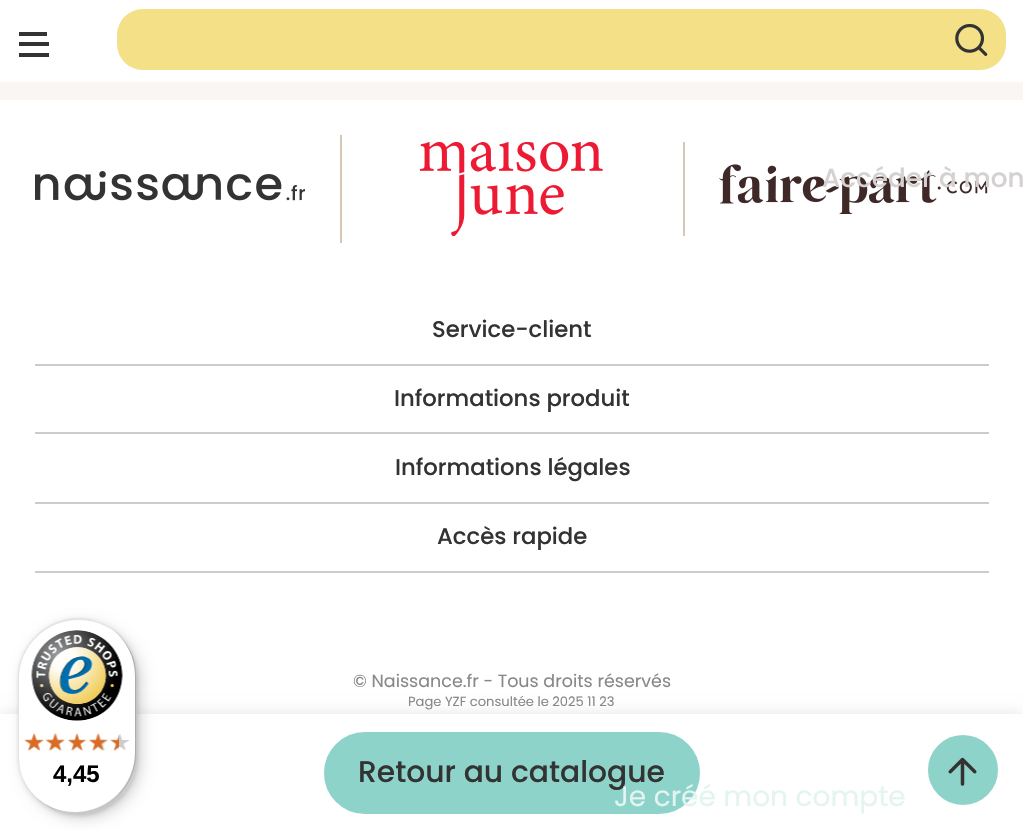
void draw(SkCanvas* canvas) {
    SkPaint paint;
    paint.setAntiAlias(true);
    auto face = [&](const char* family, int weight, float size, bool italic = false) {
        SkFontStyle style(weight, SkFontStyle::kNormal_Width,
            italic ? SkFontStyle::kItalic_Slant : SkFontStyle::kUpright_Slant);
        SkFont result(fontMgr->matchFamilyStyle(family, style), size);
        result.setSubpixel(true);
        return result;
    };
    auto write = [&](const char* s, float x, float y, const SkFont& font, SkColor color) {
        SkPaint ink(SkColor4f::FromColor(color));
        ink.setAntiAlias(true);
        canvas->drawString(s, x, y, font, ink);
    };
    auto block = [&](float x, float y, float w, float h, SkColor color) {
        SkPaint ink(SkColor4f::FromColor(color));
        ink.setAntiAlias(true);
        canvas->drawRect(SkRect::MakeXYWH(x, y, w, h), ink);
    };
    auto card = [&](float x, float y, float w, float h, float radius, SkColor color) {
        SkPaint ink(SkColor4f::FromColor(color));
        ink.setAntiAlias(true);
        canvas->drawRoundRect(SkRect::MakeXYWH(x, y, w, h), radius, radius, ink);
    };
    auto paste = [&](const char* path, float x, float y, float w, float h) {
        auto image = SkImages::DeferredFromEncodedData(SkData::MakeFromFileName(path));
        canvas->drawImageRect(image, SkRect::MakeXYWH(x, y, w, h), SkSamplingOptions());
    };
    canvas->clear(SK_ColorWHITE);
    block(19, 32, 28, 4, SkColorSetRGB(51, 51, 51));
    block(19, 42, 30, 4, SkColorSetRGB(51, 51, 51));
    block(19, 53, 30, 4, SkColorSetRGB(51, 51, 51));
    card(117, 9, 889, 61, 26, SkColorSetRGB(244, 224, 135));
    paste("pic1.png", 955, 23, 33, 33);
    paste("pic4.png", 719, 164, 269, 50);
    auto kFont1 = face("Poppins", 500, 26.25f);
    write("Accéder à mon", 822, 187, kFont1, SkColorSetRGB(214, 209, 209));
    block(0, 82, 1023, 18, SkColorSetRGB(249, 246, 243));
    block(340, 135, 2, 108, SkColorSetRGB(214, 200, 182));
    paste("pic2.png", 35, 171, 270, 30);
    block(683, 142, 2, 94, SkColorSetRGB(214, 200, 182));
    paste("pic3.png", 420, 142, 183, 94);
    block(35, 364, 954, 2, SkColorSetRGB(204, 204, 204));
    auto kFont2 = face("Poppins", 500, 22.75f);
    write("Service-client", 432, 337, kFont2, SkColorSetRGB(51, 51, 51));
    block(35, 432, 954, 2, SkColorSetRGB(204, 204, 204));
    write("Informations produit", 394, 406, kFont2, SkColorSetRGB(51, 51, 51));
    block(35, 502, 954, 2, SkColorSetRGB(204, 204, 204));
    write("Informations légales", 395, 475, kFont2, SkColorSetRGB(51, 51, 51));
    block(35, 571, 954, 2, SkColorSetRGB(204, 204, 204));
    write("Accès rapide", 437, 544, kFont2, SkColorSetRGB(51, 51, 51));
    paint.setColor(SkColorSetARGB(26, 0, 0, 0));
    paint.setMaskFilter(SkMaskFilter::MakeBlur(kNormal_SkBlurStyle, 7));
    canvas->drawRect(SkRect::MakeXYWH(0, 714, 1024, 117), paint);
    paint.setMaskFilter(nullptr);
    block(0, 714, 1023, 116, SK_ColorWHITE);
    paint.setColor(SkColorSetRGB(142, 211, 201));
    canvas->drawCircle(963, 770, 34, paint);
    paint.setStyle(SkPaint::kStroke_Style);
    paint.setStrokeWidth(2);
    canvas->drawCircle(963, 770, 34, paint);
    paste("pic5.png", 948, 757, 29, 29);
    auto kFont3 = face("Poppins", 400, 17.5f);
    write("© Naissance.fr - Tous droits réservés", 353, 687, kFont3, SkColorSetRGB(136, 136, 136));
    auto kFont4 = face("Poppins", 400, 13.1f);
    write("Page YZF consultée le 2025 11 23", 408, 706, kFont4, SkColorSetRGB(136, 136, 136));
    paint.setStyle(SkPaint::kFill_Style);
    paint.setColor(SkColorSetARGB(38, 0, 0, 0));
    paint.setMaskFilter(SkMaskFilter::MakeBlur(kNormal_SkBlurStyle, 7));
    canvas->drawRoundRect(SkRect::MakeXYWH(23, 623, 119, 196), 59.5f, 59.5f, paint);
    paint.setMaskFilter(nullptr);
    paint.setMaskFilter(SkMaskFilter::MakeBlur(kNormal_SkBlurStyle, 2));
    canvas->drawRoundRect(SkRect::MakeXYWH(19, 620, 119, 196), 59.5f, 59.5f, paint);
    paint.setMaskFilter(nullptr);
    card(18, 618, 119, 196, 59.5f, SK_ColorWHITE);
    paint.setColor(SkColorSetARGB(26, 0, 0, 0));
    canvas->drawPath(SkPathBuilder().moveTo(79, 620).cubicTo(98, 620, 115, 629, 126, 642).cubicTo(115, 628, 97, 618, 78, 618).cubicTo(45, 618, 18, 645, 18, 678).lineTo(18, 754).cubicTo(18, 767, 22, 778, 28, 788).cubicTo(22, 779, 19, 768, 19, 756).lineTo(19, 679).cubicTo(19, 646, 46, 620, 79, 620).close().detach(), paint);
    paint.setColor(SkColorSetARGB(51, 0, 0, 0));
    canvas->drawPath(SkPathBuilder().moveTo(36, 797).cubicTo(47, 808, 61, 814, 78, 814).cubicTo(110, 814, 137, 787, 137, 754).lineTo(137, 678).cubicTo(137, 658, 128, 642, 114, 631).cubicTo(127, 642, 135, 658, 135, 676).lineTo(135, 752).cubicTo(135, 785, 108, 812, 75, 812).cubicTo(60, 812, 46, 806, 36, 797).close().detach(), paint);
    paint.setColor(SkColorSetARGB(51, 50, 50, 50));
    canvas->drawPath(SkPathBuilder().moveTo(44, 804).cubicTo(54, 810, 65, 814, 78, 814).cubicTo(110, 814, 137, 787, 137, 754).lineTo(137, 678).cubicTo(137, 658, 127, 640, 113, 629).cubicTo(126, 640, 135, 657, 135, 676).lineTo(135, 753).cubicTo(135, 786, 109, 813, 76, 813).cubicTo(64, 813, 53, 810, 44, 804).close().detach(), paint);
    paint.setColor(SkColorSetARGB(77, 255, 255, 255));
    canvas->drawPath(SkPathBuilder().moveTo(38, 799).cubicTo(49, 808, 62, 814, 78, 814).cubicTo(110, 814, 137, 787, 137, 754).lineTo(137, 678).cubicTo(137, 658, 127, 640, 112, 629).cubicTo(127, 640, 136, 657, 136, 676).lineTo(136, 753).cubicTo(136, 786, 109, 813, 76, 813).cubicTo(61, 813, 48, 808, 38, 799).close().detach(), paint);
    paste("pic6.png", 31, 630, 92, 91);
    paste("pic7.png", 24, 734, 20, 16);
    paste("pic8.png", 47, 733, 18, 18);
    paste("pic9.png", 68, 734, 18, 16);
    paste("pic10.png", 89, 733, 20, 18);
    paste("pic11.png", 110, 734, 20, 16);
    paste("pic12.png", 24, 733, 20, 18);
    paste("pic13.png", 45, 733, 20, 18);
    paste("pic14.png", 68, 733, 18, 18);
    paste("pic15.png", 89, 733, 18, 18);
    paste("pic16.png", 110, 734, 9, 17);
    auto kFont5 = face("Liberation Sans", 700, 24);
    write("4,45", 53, 782, kFont5, SK_ColorBLACK);
    paint.setColor(SkColorSetRGB(142, 211, 201));
    canvas->drawRoundRect(SkRect::MakeXYWH(325, 733, 374, 80), 40, 40, paint);
    paint.setStyle(SkPaint::kStroke_Style);
    canvas->drawRoundRect(SkRect::MakeXYWH(325, 733, 374, 80), 40, 40, paint);
    auto kFont6 = face("Poppins", 500, 29.75f);
    write("Retour au catalogue", 358, 782, kFont6, SkColorSetRGB(51, 51, 51));
    auto kFont7 = face("Poppins", 400, 28);
    write("Je créé mon compte", 614, 806, kFont7, SkColorSetRGB(227, 244, 241));
}
